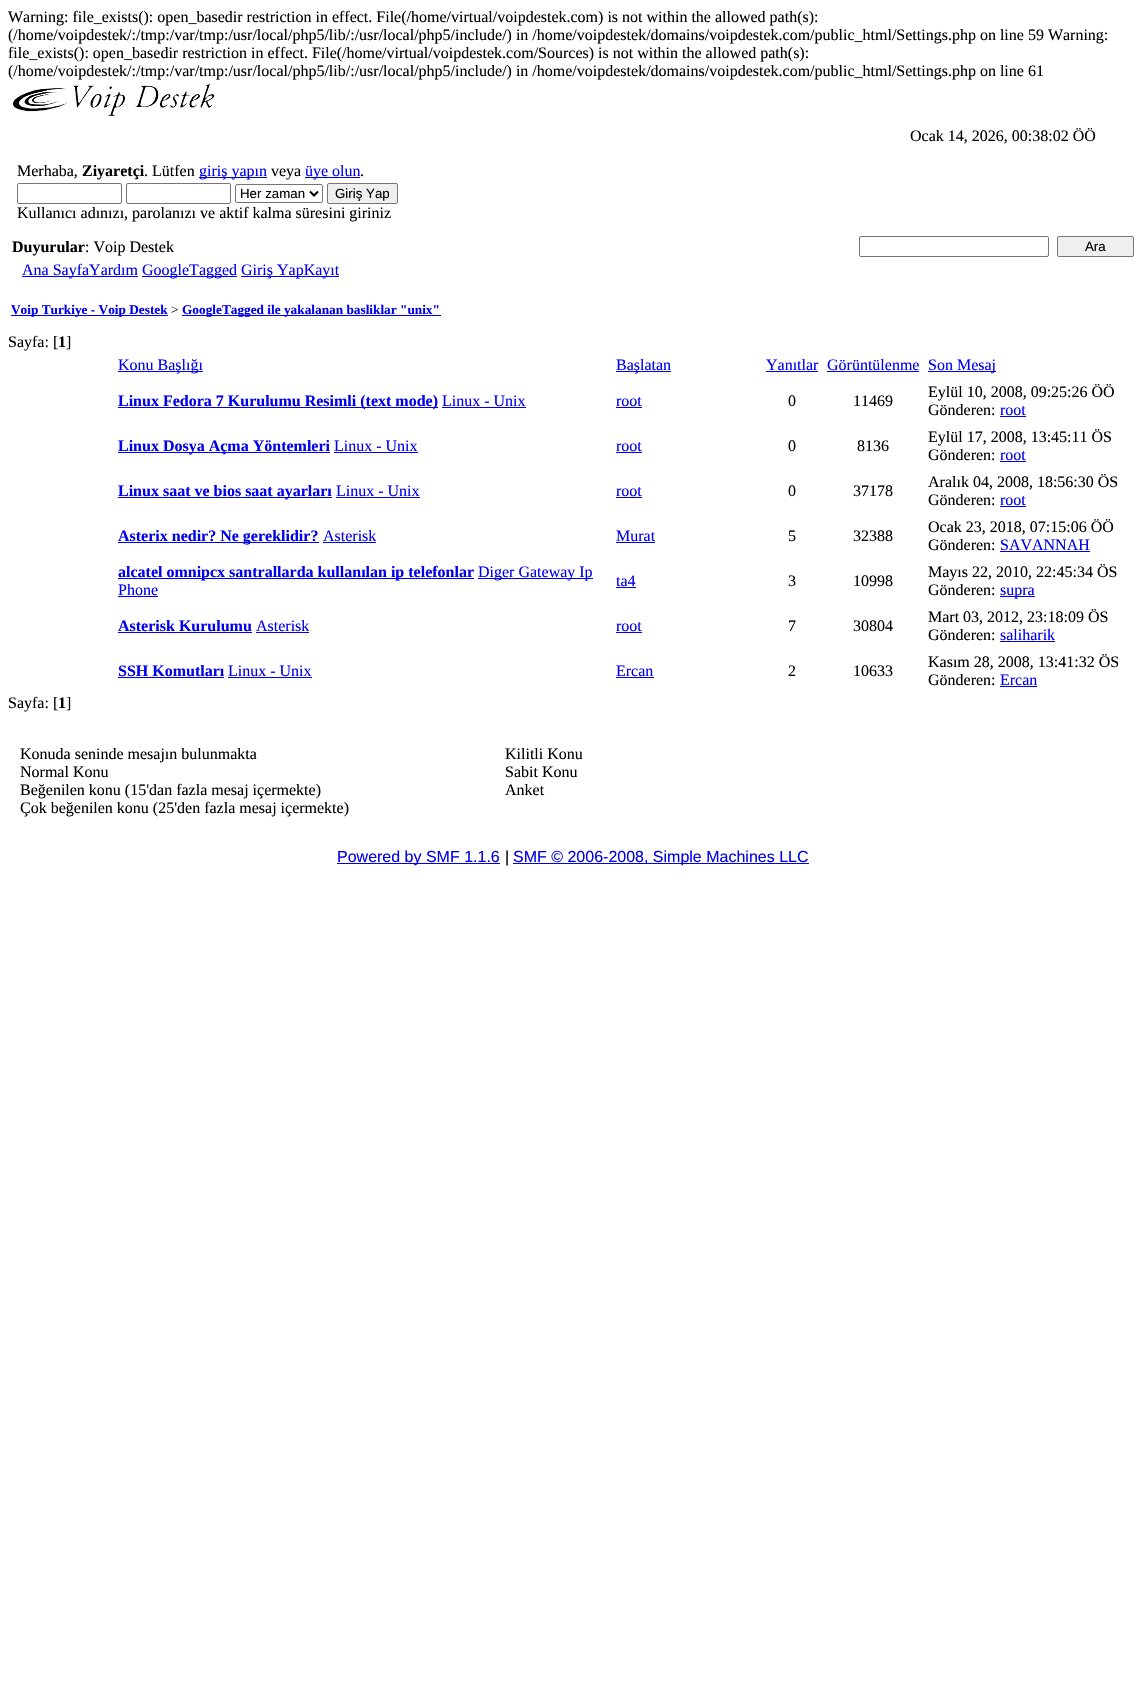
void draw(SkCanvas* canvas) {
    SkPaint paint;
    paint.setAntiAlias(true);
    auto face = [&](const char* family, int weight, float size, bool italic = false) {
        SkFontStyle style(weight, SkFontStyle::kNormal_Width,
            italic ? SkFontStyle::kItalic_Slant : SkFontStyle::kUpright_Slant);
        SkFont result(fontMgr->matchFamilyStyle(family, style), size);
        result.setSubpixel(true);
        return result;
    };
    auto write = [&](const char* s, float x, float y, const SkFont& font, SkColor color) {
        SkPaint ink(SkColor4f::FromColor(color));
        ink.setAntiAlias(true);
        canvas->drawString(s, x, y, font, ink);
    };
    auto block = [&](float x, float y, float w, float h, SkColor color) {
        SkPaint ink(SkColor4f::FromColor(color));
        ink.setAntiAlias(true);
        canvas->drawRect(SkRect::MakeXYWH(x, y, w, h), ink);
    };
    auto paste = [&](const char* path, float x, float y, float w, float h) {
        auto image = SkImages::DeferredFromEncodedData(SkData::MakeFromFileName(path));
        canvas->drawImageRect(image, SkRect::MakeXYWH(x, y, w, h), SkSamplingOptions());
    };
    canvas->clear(SK_ColorWHITE);
    auto kFont1 = face("Liberation Serif", 400, 16);
    write("Warning: file_exists(): open_basedir restriction in effect. File(/home/virtual/voipdestek.com) is not within the allowed path(s):", 8, 22, kFont1, SK_ColorBLACK);
    write("(/home/voipdestek/:/tmp:/var/tmp:/usr/local/php5/lib/:/usr/local/php5/include/) in /home/voipdestek/domains/voipdestek.com/public_html/Settings.php on line 59 Warning:", 8, 40, kFont1, SK_ColorBLACK);
    write("file_exists(): open_basedir restriction in effect. File(/home/virtual/voipdestek.com/Sources) is not within the allowed path(s):", 8, 58, kFont1, SK_ColorBLACK);
    write("(/home/voipdestek/:/tmp:/var/tmp:/usr/local/php5/lib/:/usr/local/php5/include/) in /home/voipdestek/domains/voipdestek.com/public_html/Settings.php on line 61", 8, 76, kFont1, SK_ColorBLACK);
    paste("pic1.png", 12, 84, 203, 32);
    write("Ocak 14, 2026, 00:38:02 ÖÖ", 910, 141, kFont1, SK_ColorBLACK);
    write("Merhaba,", 17, 176, kFont1, SK_ColorBLACK);
    auto kFont2 = face("Liberation Serif", 700, 16);
    write("Ziyaretçi", 82, 176, kFont2, SK_ColorBLACK);
    write(". Lütfen", 144, 176, kFont1, SK_ColorBLACK);
    block(199, 177, 68, 1, SkColorSetRGB(0, 0, 238));
    write("giriş yapın", 199, 176, kFont1, SkColorSetRGB(0, 0, 238));
    write("veya", 271, 176, kFont1, SK_ColorBLACK);
    block(305, 177, 55, 1, SkColorSetRGB(0, 0, 238));
    write("üye olun", 305, 176, kFont1, SkColorSetRGB(0, 0, 238));
    write(".", 360, 176, kFont1, SK_ColorBLACK);
    paint.setStyle(SkPaint::kStroke_Style);
    paint.setStrokeWidth(1);
    paint.setColor(SkColorSetRGB(118, 118, 118));
    canvas->drawRoundRect(SkRect::MakeXYWH(17.5f, 183.5f, 104, 20), 1.5f, 1.5f, paint);
    canvas->drawRoundRect(SkRect::MakeXYWH(126.5f, 183.5f, 104, 20), 1.5f, 1.5f, paint);
    canvas->drawRoundRect(SkRect::MakeXYWH(235.5f, 184.5f, 87, 18), 1.5f, 1.5f, paint);
    paint.setStrokeWidth(2);
    paint.setColor(SK_ColorBLACK);
    canvas->drawPath(SkPathBuilder().moveTo(310, 191.5f).lineTo(314, 195.5f).lineTo(318, 191.5f).detach(), paint);
    auto kFont3 = face("Liberation Sans", 400, 13.3f);
    write("Her zaman", 240, 198, kFont3, SK_ColorBLACK);
    paint.setStyle(SkPaint::kFill_Style);
    paint.setColor(SkColorSetRGB(239, 239, 239));
    canvas->drawRoundRect(SkRect::MakeXYWH(327.5f, 183.5f, 70, 20), 1.5f, 1.5f, paint);
    paint.setStyle(SkPaint::kStroke_Style);
    paint.setStrokeWidth(1);
    paint.setColor(SkColorSetRGB(118, 118, 118));
    canvas->drawRoundRect(SkRect::MakeXYWH(327.5f, 183.5f, 70, 20), 1.5f, 1.5f, paint);
    write("Giriş Yap", 335, 198, kFont3, SK_ColorBLACK);
    write("Kullanıcı adınızı, parolanızı ve aktif kalma süresini giriniz", 17, 218, kFont1, SK_ColorBLACK);
    write("Duyurular", 12, 252, kFont2, SK_ColorBLACK);
    write(": Voip Destek", 85, 252, kFont1, SK_ColorBLACK);
    canvas->drawRoundRect(SkRect::MakeXYWH(859.5f, 236.5f, 189, 20), 1.5f, 1.5f, paint);
    paint.setStyle(SkPaint::kFill_Style);
    paint.setColor(SkColorSetRGB(239, 239, 239));
    canvas->drawRoundRect(SkRect::MakeXYWH(1057.5f, 236.5f, 76, 20), 1.5f, 1.5f, paint);
    paint.setStyle(SkPaint::kStroke_Style);
    paint.setColor(SkColorSetRGB(118, 118, 118));
    canvas->drawRoundRect(SkRect::MakeXYWH(1057.5f, 236.5f, 76, 20), 1.5f, 1.5f, paint);
    write("Ara", 1085, 251, kFont3, SK_ColorBLACK);
    block(22, 276, 116, 1, SkColorSetRGB(0, 0, 238));
    write("Ana SayfaYardım", 22, 275, kFont1, SkColorSetRGB(0, 0, 238));
    block(142, 276, 95, 1, SkColorSetRGB(0, 0, 238));
    write("GoogleTagged", 142, 275, kFont1, SkColorSetRGB(0, 0, 238));
    block(241, 276, 98, 1, SkColorSetRGB(0, 0, 238));
    write("Giriş YapKayıt", 241, 275, kFont1, SkColorSetRGB(0, 0, 238));
    block(11, 315, 157, 1, SkColorSetRGB(0, 0, 238));
    auto kFont4 = face("Liberation Serif", 700, 13.3f);
    write("Voip Turkiye - Voip Destek", 11, 314, kFont4, SkColorSetRGB(0, 0, 238));
    auto kFont5 = face("Liberation Serif", 400, 13.3f);
    write(">", 171, 314, kFont5, SK_ColorBLACK);
    block(182, 315, 259, 1, SkColorSetRGB(0, 0, 238));
    write("GoogleTagged ile yakalanan basliklar \"unix\"", 182, 314, kFont4, SkColorSetRGB(0, 0, 238));
    write("Sayfa: [", 8, 347, kFont1, SK_ColorBLACK);
    write("1", 58, 347, kFont2, SK_ColorBLACK);
    write("]", 66, 347, kFont1, SK_ColorBLACK);
    block(118, 371, 85, 1, SkColorSetRGB(0, 0, 238));
    write("Konu Başlığı", 118, 370, kFont1, SkColorSetRGB(0, 0, 238));
    block(616, 371, 55, 1, SkColorSetRGB(0, 0, 238));
    write("Başlatan", 616, 370, kFont1, SkColorSetRGB(0, 0, 238));
    write("Yanıtlar", 766, 370, kFont1, SkColorSetRGB(0, 0, 238));
    block(766, 371, 52, 1, SkColorSetRGB(0, 0, 238));
    write("Görüntülenme", 827, 370, kFont1, SkColorSetRGB(0, 0, 238));
    block(827, 371, 92, 1, SkColorSetRGB(0, 0, 238));
    block(928, 371, 68, 1, SkColorSetRGB(0, 0, 238));
    write("Son Mesaj", 928, 370, kFont1, SkColorSetRGB(0, 0, 238));
    block(118, 407, 320, 1, SkColorSetRGB(0, 0, 238));
    write("Linux Fedora 7 Kurulumu Resimli (text mode)", 118, 406, kFont2, SkColorSetRGB(0, 0, 238));
    write("Linux - Unix", 442, 406, kFont1, SkColorSetRGB(0, 0, 238));
    block(442, 407, 84, 1, SkColorSetRGB(0, 0, 238));
    write("root", 616, 406, kFont1, SkColorSetRGB(0, 0, 238));
    block(616, 407, 26, 1, SkColorSetRGB(0, 0, 238));
    write("0", 788, 406, kFont1, SK_ColorBLACK);
    write("11469", 853, 406, kFont1, SK_ColorBLACK);
    write("Eylül 10, 2008, 09:25:26 ÖÖ", 928, 397, kFont1, SK_ColorBLACK);
    write("Gönderen:", 928, 415, kFont1, SK_ColorBLACK);
    write("root", 1000, 415, kFont1, SkColorSetRGB(0, 0, 238));
    block(1000, 416, 26, 1, SkColorSetRGB(0, 0, 238));
    block(118, 452, 212, 1, SkColorSetRGB(0, 0, 238));
    write("Linux Dosya Açma Yöntemleri", 118, 451, kFont2, SkColorSetRGB(0, 0, 238));
    write("Linux - Unix", 334, 451, kFont1, SkColorSetRGB(0, 0, 238));
    block(334, 452, 84, 1, SkColorSetRGB(0, 0, 238));
    write("root", 616, 451, kFont1, SkColorSetRGB(0, 0, 238));
    block(616, 452, 26, 1, SkColorSetRGB(0, 0, 238));
    write("0", 788, 451, kFont1, SK_ColorBLACK);
    write("8136", 857, 451, kFont1, SK_ColorBLACK);
    write("Eylül 17, 2008, 13:45:11 ÖS", 928, 442, kFont1, SK_ColorBLACK);
    write("Gönderen:", 928, 460, kFont1, SK_ColorBLACK);
    write("root", 1000, 460, kFont1, SkColorSetRGB(0, 0, 238));
    block(1000, 461, 26, 1, SkColorSetRGB(0, 0, 238));
    block(118, 497, 214, 1, SkColorSetRGB(0, 0, 238));
    write("Linux saat ve bios saat ayarları", 118, 496, kFont2, SkColorSetRGB(0, 0, 238));
    write("Linux - Unix", 336, 496, kFont1, SkColorSetRGB(0, 0, 238));
    block(336, 497, 84, 1, SkColorSetRGB(0, 0, 238));
    write("root", 616, 496, kFont1, SkColorSetRGB(0, 0, 238));
    block(616, 497, 26, 1, SkColorSetRGB(0, 0, 238));
    write("0", 788, 496, kFont1, SK_ColorBLACK);
    write("37178", 853, 496, kFont1, SK_ColorBLACK);
    write("Aralık 04, 2008, 18:56:30 ÖS", 928, 487, kFont1, SK_ColorBLACK);
    write("Gönderen:", 928, 505, kFont1, SK_ColorBLACK);
    write("root", 1000, 505, kFont1, SkColorSetRGB(0, 0, 238));
    block(1000, 506, 26, 1, SkColorSetRGB(0, 0, 238));
    block(118, 542, 201, 1, SkColorSetRGB(0, 0, 238));
    write("Asterix nedir? Ne gereklidir?", 118, 541, kFont2, SkColorSetRGB(0, 0, 238));
    write("Asterisk", 323, 541, kFont1, SkColorSetRGB(0, 0, 238));
    block(323, 542, 53, 1, SkColorSetRGB(0, 0, 238));
    write("Murat", 616, 541, kFont1, SkColorSetRGB(0, 0, 238));
    block(616, 542, 39, 1, SkColorSetRGB(0, 0, 238));
    write("5", 788, 541, kFont1, SK_ColorBLACK);
    write("32388", 853, 541, kFont1, SK_ColorBLACK);
    write("Ocak 23, 2018, 07:15:06 ÖÖ", 928, 532, kFont1, SK_ColorBLACK);
    write("Gönderen:", 928, 550, kFont1, SK_ColorBLACK);
    write("SAVANNAH", 1000, 550, kFont1, SkColorSetRGB(0, 0, 238));
    block(1000, 551, 90, 1, SkColorSetRGB(0, 0, 238));
    block(118, 578, 356, 1, SkColorSetRGB(0, 0, 238));
    write("alcatel omnipcx santrallarda kullanılan ip telefonlar", 118, 577, kFont2, SkColorSetRGB(0, 0, 238));
    block(478, 578, 115, 1, SkColorSetRGB(0, 0, 238));
    write("Diger Gateway Ip", 478, 577, kFont1, SkColorSetRGB(0, 0, 238));
    write("Phone", 118, 595, kFont1, SkColorSetRGB(0, 0, 238));
    block(118, 596, 40, 1, SkColorSetRGB(0, 0, 238));
    write("ta4", 616, 586, kFont1, SkColorSetRGB(0, 0, 238));
    block(616, 587, 20, 1, SkColorSetRGB(0, 0, 238));
    write("3", 788, 586, kFont1, SK_ColorBLACK);
    write("10998", 853, 586, kFont1, SK_ColorBLACK);
    write("Mayıs 22, 2010, 22:45:34 ÖS", 928, 577, kFont1, SK_ColorBLACK);
    write("Gönderen:", 928, 595, kFont1, SK_ColorBLACK);
    block(1000, 596, 35, 1, SkColorSetRGB(0, 0, 238));
    write("supra", 1000, 595, kFont1, SkColorSetRGB(0, 0, 238));
    write("Asterisk Kurulumu", 118, 631, kFont2, SkColorSetRGB(0, 0, 238));
    block(118, 632, 134, 1, SkColorSetRGB(0, 0, 238));
    write("Asterisk", 256, 631, kFont1, SkColorSetRGB(0, 0, 238));
    block(256, 632, 53, 1, SkColorSetRGB(0, 0, 238));
    write("root", 616, 631, kFont1, SkColorSetRGB(0, 0, 238));
    block(616, 632, 26, 1, SkColorSetRGB(0, 0, 238));
    write("7", 788, 631, kFont1, SK_ColorBLACK);
    write("30804", 853, 631, kFont1, SK_ColorBLACK);
    write("Mart 03, 2012, 23:18:09 ÖS", 928, 622, kFont1, SK_ColorBLACK);
    write("Gönderen:", 928, 640, kFont1, SK_ColorBLACK);
    write("saliharik", 1000, 640, kFont1, SkColorSetRGB(0, 0, 238));
    block(1000, 641, 55, 1, SkColorSetRGB(0, 0, 238));
    write("SSH Komutları", 118, 676, kFont2, SkColorSetRGB(0, 0, 238));
    block(118, 677, 106, 1, SkColorSetRGB(0, 0, 238));
    write("Linux - Unix", 228, 676, kFont1, SkColorSetRGB(0, 0, 238));
    block(228, 677, 84, 1, SkColorSetRGB(0, 0, 238));
    write("Ercan", 616, 676, kFont1, SkColorSetRGB(0, 0, 238));
    block(616, 677, 38, 1, SkColorSetRGB(0, 0, 238));
    write("2", 788, 676, kFont1, SK_ColorBLACK);
    write("10633", 853, 676, kFont1, SK_ColorBLACK);
    write("Kasım 28, 2008, 13:41:32 ÖS", 928, 667, kFont1, SK_ColorBLACK);
    write("Gönderen:", 928, 685, kFont1, SK_ColorBLACK);
    write("Ercan", 1000, 685, kFont1, SkColorSetRGB(0, 0, 238));
    block(1000, 686, 37, 1, SkColorSetRGB(0, 0, 238));
    write("Sayfa: [", 8, 708, kFont1, SK_ColorBLACK);
    write("1", 58, 708, kFont2, SK_ColorBLACK);
    write("]", 66, 708, kFont1, SK_ColorBLACK);
    write("Konuda seninde mesajın bulunmakta", 20, 759, kFont1, SK_ColorBLACK);
    write("Normal Konu", 20, 777, kFont1, SK_ColorBLACK);
    write("Beğenilen konu (15'dan fazla mesaj içermekte)", 20, 795, kFont1, SK_ColorBLACK);
    write("Çok beğenilen konu (25'den fazla mesaj içermekte)", 20, 813, kFont1, SK_ColorBLACK);
    write("Kilitli Konu", 505, 759, kFont1, SK_ColorBLACK);
    write("Sabit Konu", 505, 777, kFont1, SK_ColorBLACK);
    write("Anket", 505, 795, kFont1, SK_ColorBLACK);
    block(337, 863, 163, 1, SkColorSetRGB(0, 0, 238));
    auto kFont6 = face("Liberation Sans", 400, 16);
    write("Powered by SMF 1.1.6", 337, 862, kFont6, SkColorSetRGB(0, 0, 238));
    write("|", 505, 862, kFont6, SK_ColorBLACK);
    block(513, 863, 296, 1, SkColorSetRGB(0, 0, 238));
    write("SMF © 2006-2008, Simple Machines LLC", 513, 862, kFont6, SkColorSetRGB(0, 0, 238));
}
